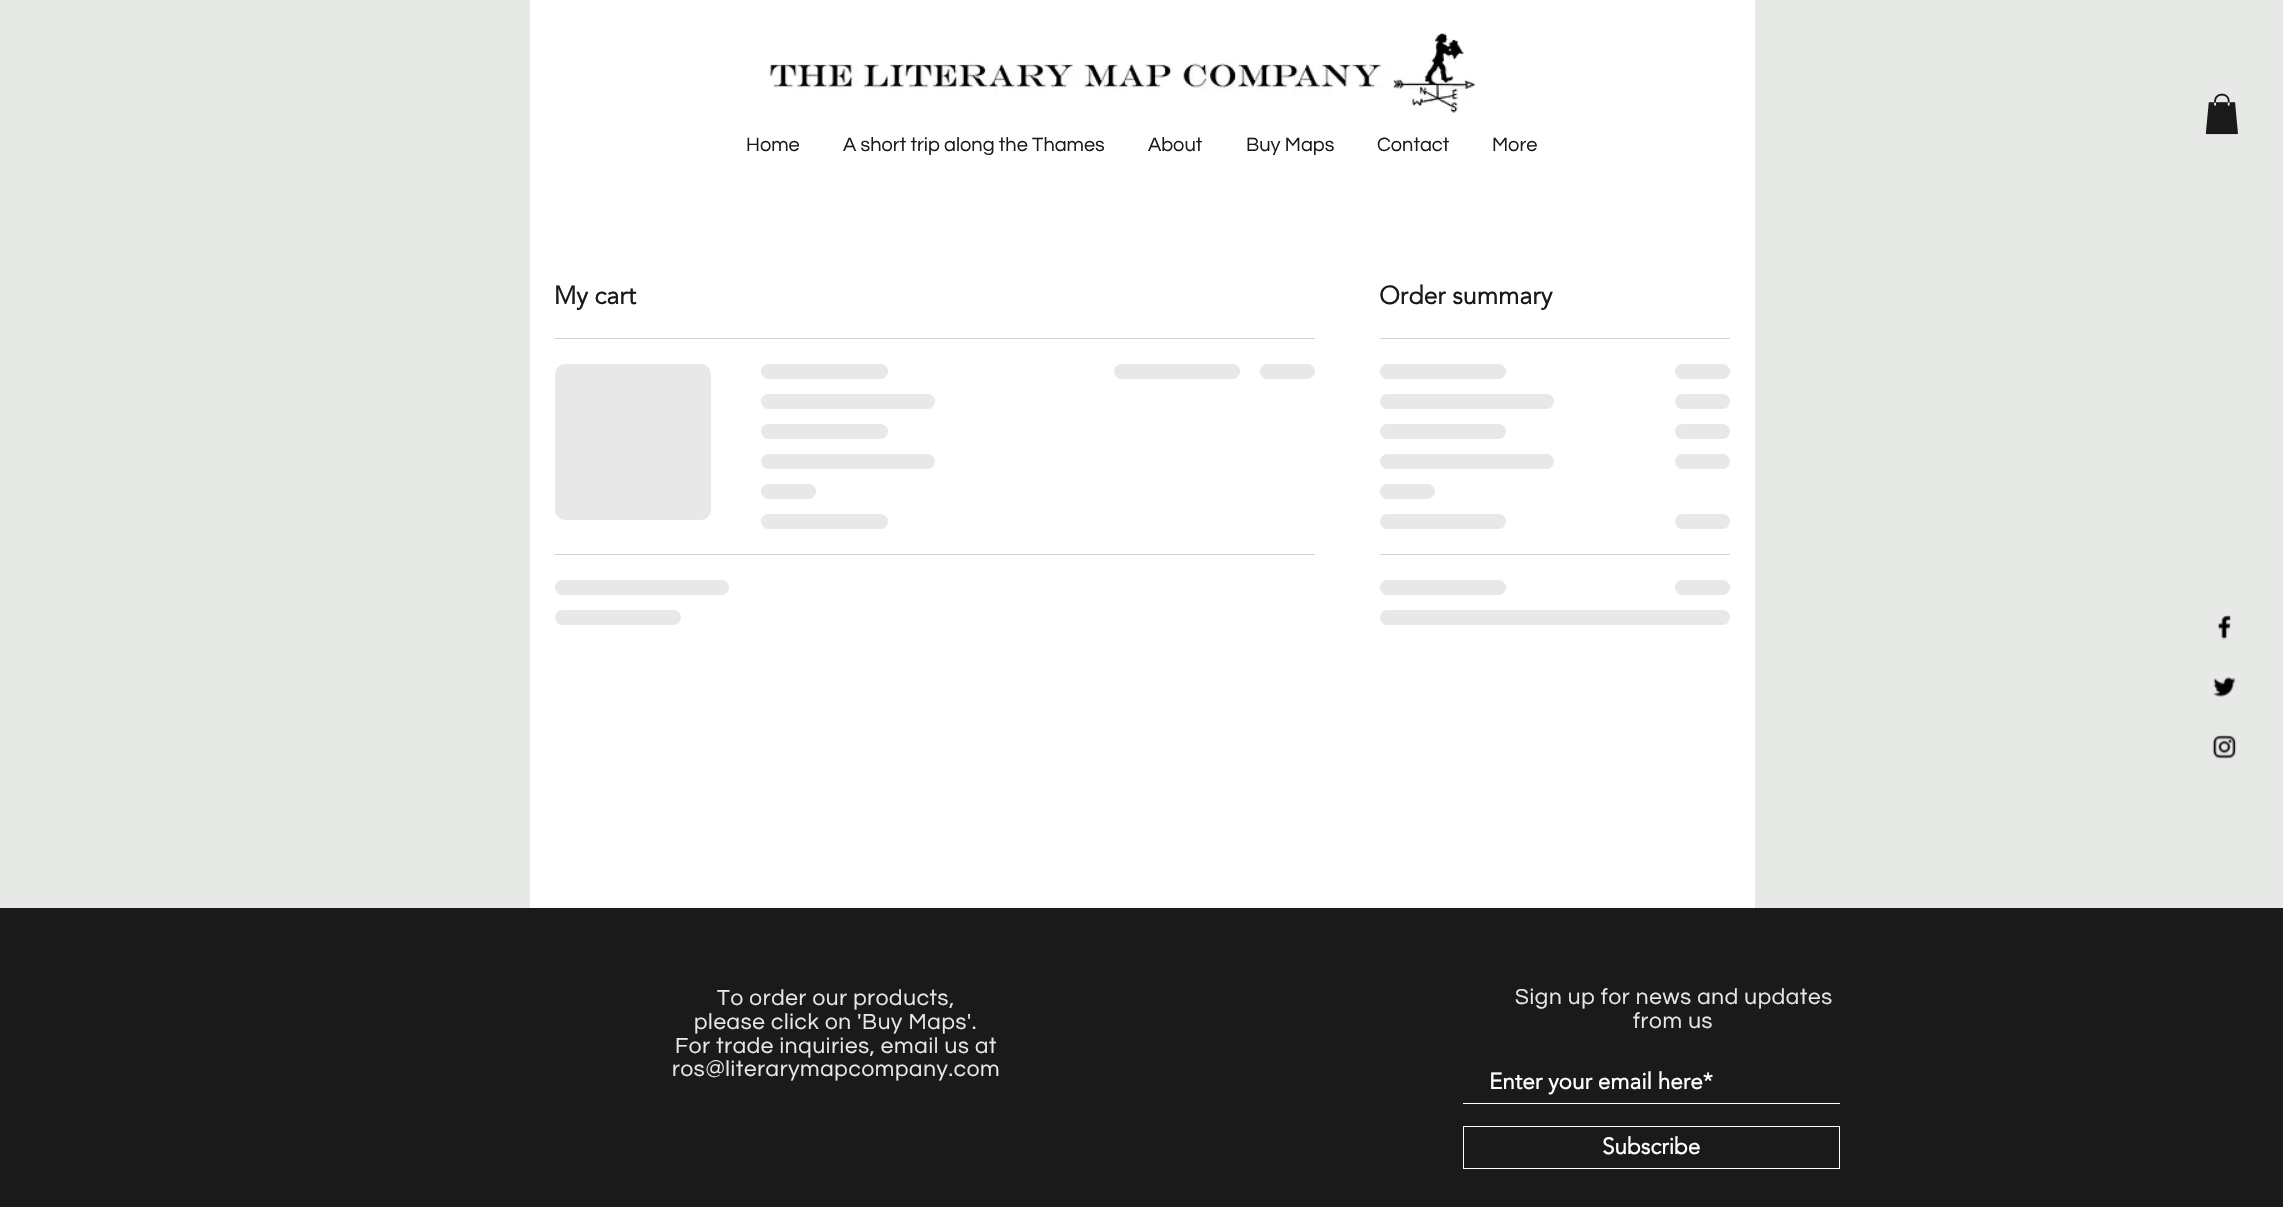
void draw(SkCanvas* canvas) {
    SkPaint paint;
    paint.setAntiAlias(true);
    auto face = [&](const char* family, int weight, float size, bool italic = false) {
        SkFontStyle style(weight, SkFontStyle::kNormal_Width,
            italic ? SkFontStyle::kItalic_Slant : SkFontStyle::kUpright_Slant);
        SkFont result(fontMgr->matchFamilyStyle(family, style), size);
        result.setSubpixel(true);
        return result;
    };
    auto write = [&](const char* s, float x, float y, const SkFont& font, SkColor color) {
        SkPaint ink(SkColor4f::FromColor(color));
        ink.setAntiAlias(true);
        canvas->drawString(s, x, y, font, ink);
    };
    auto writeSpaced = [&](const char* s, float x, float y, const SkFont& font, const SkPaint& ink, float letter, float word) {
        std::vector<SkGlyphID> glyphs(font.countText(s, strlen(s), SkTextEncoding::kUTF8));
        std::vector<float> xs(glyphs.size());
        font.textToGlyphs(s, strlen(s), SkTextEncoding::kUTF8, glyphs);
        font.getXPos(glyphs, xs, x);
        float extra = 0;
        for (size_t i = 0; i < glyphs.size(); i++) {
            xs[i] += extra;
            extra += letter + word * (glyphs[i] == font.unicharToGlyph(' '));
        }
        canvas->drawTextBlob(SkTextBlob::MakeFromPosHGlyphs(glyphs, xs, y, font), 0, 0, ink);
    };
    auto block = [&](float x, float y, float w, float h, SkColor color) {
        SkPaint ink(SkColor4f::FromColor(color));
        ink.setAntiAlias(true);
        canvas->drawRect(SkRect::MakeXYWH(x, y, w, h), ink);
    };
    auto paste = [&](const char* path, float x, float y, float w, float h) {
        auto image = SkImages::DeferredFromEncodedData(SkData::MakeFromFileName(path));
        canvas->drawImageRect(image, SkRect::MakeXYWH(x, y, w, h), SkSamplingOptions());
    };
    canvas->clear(SkColorSetRGB(230, 233, 230));
    paste("pic1.png", 2205, 93, 33, 42);
    block(530, 0, 1225, 908, SK_ColorWHITE);
    paste("pic2.png", 768, 33, 708, 80);
    auto kFont1 = face("Questrial", 400, 20);
    write("Home", 746, 151, kFont1, SkColorSetRGB(26, 26, 26));
    write("A short trip along the Thames", 843, 151, kFont1, SkColorSetRGB(26, 26, 26));
    write("About", 1148, 151, kFont1, SkColorSetRGB(26, 26, 26));
    write("Buy Maps", 1246, 151, kFont1, SkColorSetRGB(26, 26, 26));
    write("Contact", 1377, 151, kFont1, SkColorSetRGB(26, 26, 26));
    write("More", 1492, 151, kFont1, SkColorSetRGB(26, 26, 26));
    block(555, 338, 760, 1, SkColorSetRGB(209, 209, 209));
    auto kFont2 = face("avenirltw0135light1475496", 700, 25);
    write("My cart", 554, 304, kFont2, SkColorSetRGB(26, 26, 26));
    {
        const SkColor colors[] = {SkColorSetRGB(232, 232, 232), SkColorSetRGB(209, 209, 209), SkColorSetRGB(232, 232, 232)};
        const float stops[] = {0.25f, 0.37f, 0.63f};
        const SkPoint ends[] = {{555, 442}, {1180, 442}};
        paint.setShader(SkGradientShader::MakeLinear(ends, colors, stops, 3, SkTileMode::kClamp));
        paint.setAlpha(255);
    }
    canvas->drawRoundRect(SkRect::MakeXYWH(555, 364, 156, 156), 10, 10, paint);
    {
        const SkColor colors[] = {SkColorSetRGB(232, 232, 232), SkColorSetRGB(209, 209, 209), SkColorSetRGB(232, 232, 232)};
        const float stops[] = {0.25f, 0.37f, 0.63f};
        const SkPoint ends[] = {{761, 371}, {1266, 371}};
        paint.setShader(SkGradientShader::MakeLinear(ends, colors, stops, 3, SkTileMode::kClamp));
        paint.setAlpha(255);
    }
    canvas->drawRoundRect(SkRect::MakeXYWH(761, 364, 127, 15), 7.5f, 7.5f, paint);
    {
        const SkColor colors[] = {SkColorSetRGB(232, 232, 232), SkColorSetRGB(209, 209, 209), SkColorSetRGB(232, 232, 232)};
        const float stops[] = {0.25f, 0.37f, 0.63f};
        const SkPoint ends[] = {{761, 401}, {1456, 401}};
        paint.setShader(SkGradientShader::MakeLinear(ends, colors, stops, 3, SkTileMode::kClamp));
        paint.setAlpha(255);
    }
    canvas->drawRoundRect(SkRect::MakeXYWH(761, 394, 174, 15), 7.5f, 7.5f, paint);
    {
        const SkColor colors[] = {SkColorSetRGB(232, 232, 232), SkColorSetRGB(209, 209, 209), SkColorSetRGB(232, 232, 232)};
        const float stops[] = {0.25f, 0.37f, 0.63f};
        const SkPoint ends[] = {{761, 431}, {1266, 431}};
        paint.setShader(SkGradientShader::MakeLinear(ends, colors, stops, 3, SkTileMode::kClamp));
        paint.setAlpha(255);
    }
    canvas->drawRoundRect(SkRect::MakeXYWH(761, 424, 127, 15), 7.5f, 7.5f, paint);
    {
        const SkColor colors[] = {SkColorSetRGB(232, 232, 232), SkColorSetRGB(209, 209, 209), SkColorSetRGB(232, 232, 232)};
        const float stops[] = {0.25f, 0.37f, 0.63f};
        const SkPoint ends[] = {{761, 461}, {1456, 461}};
        paint.setShader(SkGradientShader::MakeLinear(ends, colors, stops, 3, SkTileMode::kClamp));
        paint.setAlpha(255);
    }
    canvas->drawRoundRect(SkRect::MakeXYWH(761, 454, 174, 15), 7.5f, 7.5f, paint);
    {
        const SkColor colors[] = {SkColorSetRGB(232, 232, 232), SkColorSetRGB(209, 209, 209), SkColorSetRGB(232, 232, 232)};
        const float stops[] = {0.25f, 0.37f, 0.63f};
        const SkPoint ends[] = {{761, 491}, {981, 491}};
        paint.setShader(SkGradientShader::MakeLinear(ends, colors, stops, 3, SkTileMode::kClamp));
        paint.setAlpha(255);
    }
    canvas->drawRoundRect(SkRect::MakeXYWH(761, 484, 55, 15), 7.5f, 7.5f, paint);
    {
        const SkColor colors[] = {SkColorSetRGB(232, 232, 232), SkColorSetRGB(209, 209, 209), SkColorSetRGB(232, 232, 232)};
        const float stops[] = {0.25f, 0.37f, 0.63f};
        const SkPoint ends[] = {{761, 521}, {1266, 521}};
        paint.setShader(SkGradientShader::MakeLinear(ends, colors, stops, 3, SkTileMode::kClamp));
        paint.setAlpha(255);
    }
    canvas->drawRoundRect(SkRect::MakeXYWH(761, 514, 127, 15), 7.5f, 7.5f, paint);
    {
        const SkColor colors[] = {SkColorSetRGB(232, 232, 232), SkColorSetRGB(209, 209, 209), SkColorSetRGB(232, 232, 232)};
        const float stops[] = {0.25f, 0.37f, 0.63f};
        const SkPoint ends[] = {{1114, 371}, {1619, 371}};
        paint.setShader(SkGradientShader::MakeLinear(ends, colors, stops, 3, SkTileMode::kClamp));
        paint.setAlpha(255);
    }
    canvas->drawRoundRect(SkRect::MakeXYWH(1114, 364, 126, 15), 7.5f, 7.5f, paint);
    {
        const SkColor colors[] = {SkColorSetRGB(232, 232, 232), SkColorSetRGB(209, 209, 209), SkColorSetRGB(232, 232, 232)};
        const float stops[] = {0.25f, 0.37f, 0.63f};
        const SkPoint ends[] = {{1260, 371}, {1480, 371}};
        paint.setShader(SkGradientShader::MakeLinear(ends, colors, stops, 3, SkTileMode::kClamp));
        paint.setAlpha(255);
    }
    canvas->drawRoundRect(SkRect::MakeXYWH(1260, 364, 55, 15), 7.5f, 7.5f, paint);
    block(555, 554, 760, 1, SkColorSetRGB(209, 209, 209));
    {
        const SkColor colors[] = {SkColorSetRGB(232, 232, 232), SkColorSetRGB(209, 209, 209), SkColorSetRGB(232, 232, 232)};
        const float stops[] = {0.25f, 0.37f, 0.63f};
        const SkPoint ends[] = {{555, 588}, {1250, 588}};
        paint.setShader(SkGradientShader::MakeLinear(ends, colors, stops, 3, SkTileMode::kClamp));
        paint.setAlpha(255);
    }
    canvas->drawRoundRect(SkRect::MakeXYWH(555, 580, 174, 15), 7.5f, 7.5f, paint);
    {
        const SkColor colors[] = {SkColorSetRGB(232, 232, 232), SkColorSetRGB(209, 209, 209), SkColorSetRGB(232, 232, 232)};
        const float stops[] = {0.25f, 0.37f, 0.63f};
        const SkPoint ends[] = {{555, 618}, {1060, 618}};
        paint.setShader(SkGradientShader::MakeLinear(ends, colors, stops, 3, SkTileMode::kClamp));
        paint.setAlpha(255);
    }
    canvas->drawRoundRect(SkRect::MakeXYWH(555, 610, 126, 15), 7.5f, 7.5f, paint);
    block(1380, 338, 350, 1, SkColorSetRGB(209, 209, 209));
    write("Order summary", 1379, 304, kFont2, SkColorSetRGB(26, 26, 26));
    {
        const SkColor colors[] = {SkColorSetRGB(232, 232, 232), SkColorSetRGB(209, 209, 209), SkColorSetRGB(232, 232, 232)};
        const float stops[] = {0.25f, 0.37f, 0.63f};
        const SkPoint ends[] = {{1380, 371}, {1885, 371}};
        paint.setShader(SkGradientShader::MakeLinear(ends, colors, stops, 3, SkTileMode::kClamp));
        paint.setAlpha(255);
    }
    canvas->drawRoundRect(SkRect::MakeXYWH(1380, 364, 126, 15), 7.5f, 7.5f, paint);
    {
        const SkColor colors[] = {SkColorSetRGB(232, 232, 232), SkColorSetRGB(209, 209, 209), SkColorSetRGB(232, 232, 232)};
        const float stops[] = {0.25f, 0.37f, 0.63f};
        const SkPoint ends[] = {{1675, 371}, {1895, 371}};
        paint.setShader(SkGradientShader::MakeLinear(ends, colors, stops, 3, SkTileMode::kClamp));
        paint.setAlpha(255);
    }
    canvas->drawRoundRect(SkRect::MakeXYWH(1675, 364, 55, 15), 7.5f, 7.5f, paint);
    {
        const SkColor colors[] = {SkColorSetRGB(232, 232, 232), SkColorSetRGB(209, 209, 209), SkColorSetRGB(232, 232, 232)};
        const float stops[] = {0.25f, 0.37f, 0.63f};
        const SkPoint ends[] = {{1380, 401}, {2075, 401}};
        paint.setShader(SkGradientShader::MakeLinear(ends, colors, stops, 3, SkTileMode::kClamp));
        paint.setAlpha(255);
    }
    canvas->drawRoundRect(SkRect::MakeXYWH(1380, 394, 174, 15), 7.5f, 7.5f, paint);
    {
        const SkColor colors[] = {SkColorSetRGB(232, 232, 232), SkColorSetRGB(209, 209, 209), SkColorSetRGB(232, 232, 232)};
        const float stops[] = {0.25f, 0.37f, 0.63f};
        const SkPoint ends[] = {{1675, 401}, {1895, 401}};
        paint.setShader(SkGradientShader::MakeLinear(ends, colors, stops, 3, SkTileMode::kClamp));
        paint.setAlpha(255);
    }
    canvas->drawRoundRect(SkRect::MakeXYWH(1675, 394, 55, 15), 7.5f, 7.5f, paint);
    {
        const SkColor colors[] = {SkColorSetRGB(232, 232, 232), SkColorSetRGB(209, 209, 209), SkColorSetRGB(232, 232, 232)};
        const float stops[] = {0.25f, 0.37f, 0.63f};
        const SkPoint ends[] = {{1380, 431}, {1885, 431}};
        paint.setShader(SkGradientShader::MakeLinear(ends, colors, stops, 3, SkTileMode::kClamp));
        paint.setAlpha(255);
    }
    canvas->drawRoundRect(SkRect::MakeXYWH(1380, 424, 126, 15), 7.5f, 7.5f, paint);
    {
        const SkColor colors[] = {SkColorSetRGB(232, 232, 232), SkColorSetRGB(209, 209, 209), SkColorSetRGB(232, 232, 232)};
        const float stops[] = {0.25f, 0.37f, 0.63f};
        const SkPoint ends[] = {{1675, 431}, {1895, 431}};
        paint.setShader(SkGradientShader::MakeLinear(ends, colors, stops, 3, SkTileMode::kClamp));
        paint.setAlpha(255);
    }
    canvas->drawRoundRect(SkRect::MakeXYWH(1675, 424, 55, 15), 7.5f, 7.5f, paint);
    {
        const SkColor colors[] = {SkColorSetRGB(232, 232, 232), SkColorSetRGB(209, 209, 209), SkColorSetRGB(232, 232, 232)};
        const float stops[] = {0.25f, 0.37f, 0.63f};
        const SkPoint ends[] = {{1380, 461}, {2075, 461}};
        paint.setShader(SkGradientShader::MakeLinear(ends, colors, stops, 3, SkTileMode::kClamp));
        paint.setAlpha(255);
    }
    canvas->drawRoundRect(SkRect::MakeXYWH(1380, 454, 174, 15), 7.5f, 7.5f, paint);
    {
        const SkColor colors[] = {SkColorSetRGB(232, 232, 232), SkColorSetRGB(209, 209, 209), SkColorSetRGB(232, 232, 232)};
        const float stops[] = {0.25f, 0.37f, 0.63f};
        const SkPoint ends[] = {{1675, 461}, {1895, 461}};
        paint.setShader(SkGradientShader::MakeLinear(ends, colors, stops, 3, SkTileMode::kClamp));
        paint.setAlpha(255);
    }
    canvas->drawRoundRect(SkRect::MakeXYWH(1675, 454, 55, 15), 7.5f, 7.5f, paint);
    {
        const SkColor colors[] = {SkColorSetRGB(232, 232, 232), SkColorSetRGB(209, 209, 209), SkColorSetRGB(232, 232, 232)};
        const float stops[] = {0.25f, 0.37f, 0.63f};
        const SkPoint ends[] = {{1380, 491}, {1600, 491}};
        paint.setShader(SkGradientShader::MakeLinear(ends, colors, stops, 3, SkTileMode::kClamp));
        paint.setAlpha(255);
    }
    canvas->drawRoundRect(SkRect::MakeXYWH(1380, 484, 55, 15), 7.5f, 7.5f, paint);
    {
        const SkColor colors[] = {SkColorSetRGB(232, 232, 232), SkColorSetRGB(209, 209, 209), SkColorSetRGB(232, 232, 232)};
        const float stops[] = {0.25f, 0.37f, 0.63f};
        const SkPoint ends[] = {{1380, 521}, {1885, 521}};
        paint.setShader(SkGradientShader::MakeLinear(ends, colors, stops, 3, SkTileMode::kClamp));
        paint.setAlpha(255);
    }
    canvas->drawRoundRect(SkRect::MakeXYWH(1380, 514, 126, 15), 7.5f, 7.5f, paint);
    {
        const SkColor colors[] = {SkColorSetRGB(232, 232, 232), SkColorSetRGB(209, 209, 209), SkColorSetRGB(232, 232, 232)};
        const float stops[] = {0.25f, 0.37f, 0.63f};
        const SkPoint ends[] = {{1675, 521}, {1895, 521}};
        paint.setShader(SkGradientShader::MakeLinear(ends, colors, stops, 3, SkTileMode::kClamp));
        paint.setAlpha(255);
    }
    canvas->drawRoundRect(SkRect::MakeXYWH(1675, 514, 55, 15), 7.5f, 7.5f, paint);
    block(1380, 554, 350, 1, SkColorSetRGB(209, 209, 209));
    {
        const SkColor colors[] = {SkColorSetRGB(232, 232, 232), SkColorSetRGB(209, 209, 209), SkColorSetRGB(232, 232, 232)};
        const float stops[] = {0.25f, 0.37f, 0.63f};
        const SkPoint ends[] = {{1380, 588}, {1885, 588}};
        paint.setShader(SkGradientShader::MakeLinear(ends, colors, stops, 3, SkTileMode::kClamp));
        paint.setAlpha(255);
    }
    canvas->drawRoundRect(SkRect::MakeXYWH(1380, 580, 126, 15), 7.5f, 7.5f, paint);
    {
        const SkColor colors[] = {SkColorSetRGB(232, 232, 232), SkColorSetRGB(209, 209, 209), SkColorSetRGB(232, 232, 232)};
        const float stops[] = {0.25f, 0.37f, 0.63f};
        const SkPoint ends[] = {{1675, 588}, {1895, 588}};
        paint.setShader(SkGradientShader::MakeLinear(ends, colors, stops, 3, SkTileMode::kClamp));
        paint.setAlpha(255);
    }
    canvas->drawRoundRect(SkRect::MakeXYWH(1675, 580, 55, 15), 7.5f, 7.5f, paint);
    {
        const SkColor colors[] = {SkColorSetRGB(232, 232, 232), SkColorSetRGB(209, 209, 209), SkColorSetRGB(232, 232, 232)};
        const float stops[] = {0.25f, 0.37f, 0.63f};
        const SkPoint ends[] = {{1380, 618}, {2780, 617}};
        paint.setShader(SkGradientShader::MakeLinear(ends, colors, stops, 3, SkTileMode::kClamp));
        paint.setAlpha(255);
    }
    canvas->drawRoundRect(SkRect::MakeXYWH(1380, 610, 350, 15), 7.5f, 7.5f, paint);
    paste("pic3.png", 2217, 615, 15, 25);
    paste("pic4.png", 2213, 677, 23, 20);
    paste("pic5.png", 2212, 735, 25, 24);
    block(0, 908, 2283, 299, SkColorSetRGB(26, 26, 26));
    auto kFont3 = face("Questrial", 400, 22.5f);
    paint.setShader(nullptr);
    paint.setColor(SkColorSetRGB(230, 233, 230));
    writeSpaced("To order our products,", 717, 1005, kFont3, paint, 0.7f, 0);
    writeSpaced("please click on 'Buy Maps'.", 694, 1029, kFont3, paint, 0.7f, 0);
    writeSpaced("For trade inquiries, email us at", 675, 1053, kFont3, paint, 0.7f, 0);
    writeSpaced("ros@literarymapcompany.com", 672, 1076, kFont3, paint, 0.7f, 0);
    writeSpaced("Sign up for news and updates", 1515, 1004, kFont3, paint, 0.7f, 0);
    writeSpaced("from us", 1633, 1028, kFont3, paint, 0.7f, 0);
    block(1463, 1103, 377, 1, SK_ColorWHITE);
    auto kFont4 = face("avenirltw0135light1475496", 700, 22.5f);
    write("Enter your email here*", 1489, 1089, kFont4, SK_ColorWHITE);
    paint.setStyle(SkPaint::kStroke_Style);
    paint.setStrokeWidth(1);
    paint.setColor(SK_ColorWHITE);
    canvas->drawRect(SkRect::MakeXYWH(1463.5f, 1126.5f, 376, 42), paint);
    write("Subscribe", 1602, 1154, kFont4, SK_ColorWHITE);
}
